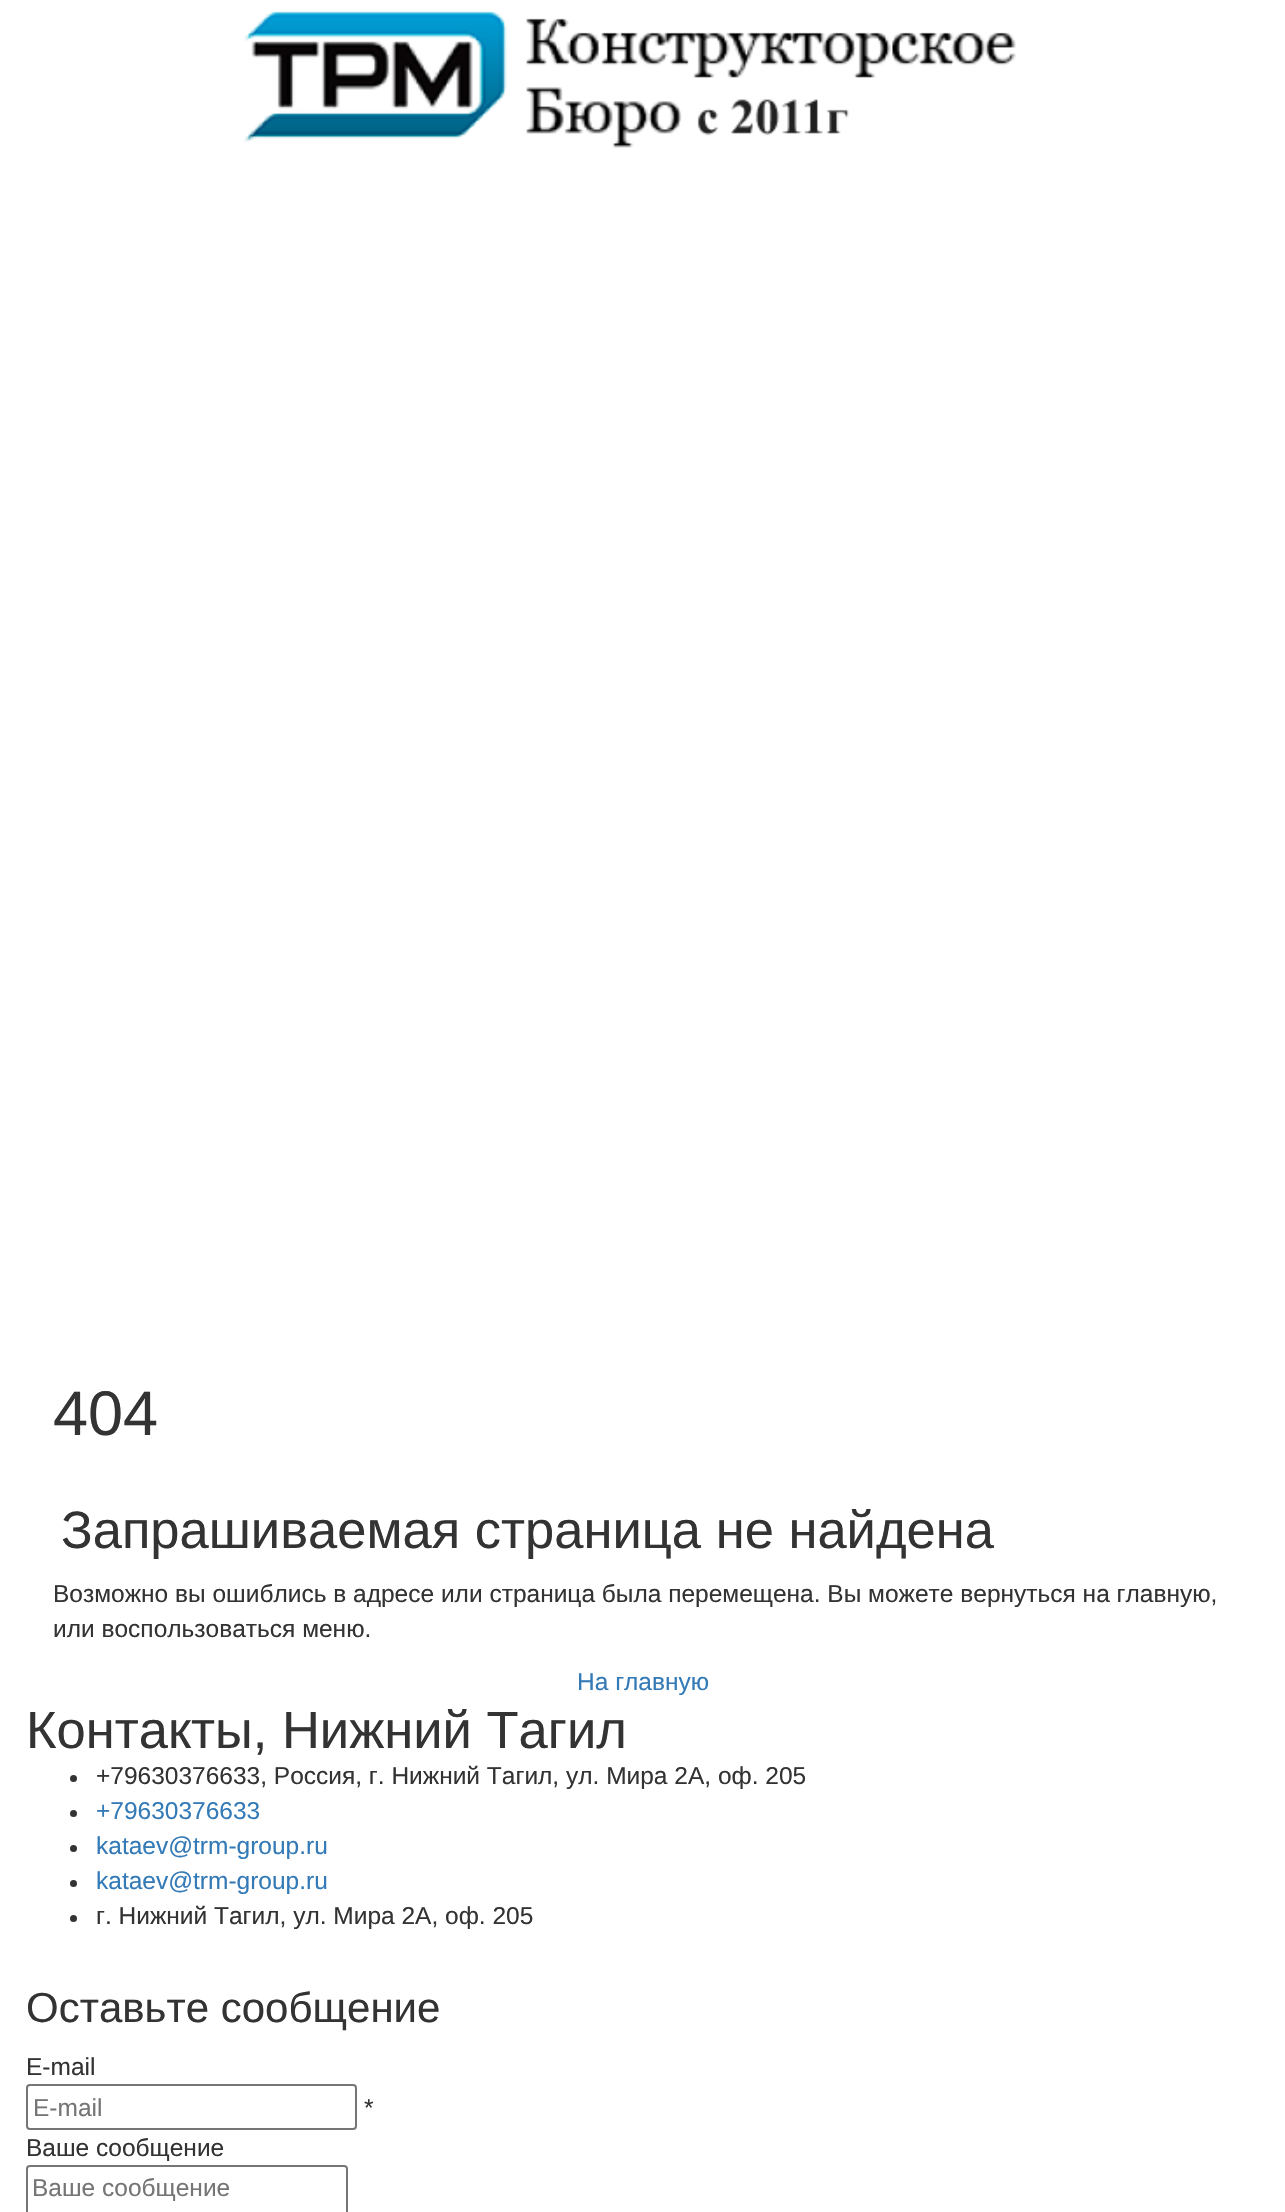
void draw(SkCanvas* canvas) {
    SkPaint paint;
    paint.setAntiAlias(true);
    auto face = [&](const char* family, int weight, float size, bool italic = false) {
        SkFontStyle style(weight, SkFontStyle::kNormal_Width,
            italic ? SkFontStyle::kItalic_Slant : SkFontStyle::kUpright_Slant);
        SkFont result(fontMgr->matchFamilyStyle(family, style), size);
        result.setSubpixel(true);
        return result;
    };
    auto write = [&](const char* s, float x, float y, const SkFont& font, SkColor color) {
        SkPaint ink(SkColor4f::FromColor(color));
        ink.setAntiAlias(true);
        canvas->drawString(s, x, y, font, ink);
    };
    auto paste = [&](const char* path, float x, float y, float w, float h) {
        auto image = SkImages::DeferredFromEncodedData(SkData::MakeFromFileName(path));
        canvas->drawImageRect(image, SkRect::MakeXYWH(x, y, w, h), SkSamplingOptions());
    };
    canvas->clear(SK_ColorWHITE);
    paste("pic1.png", 243, 11, 773, 137);
    auto kFont1 = face("Liberation Sans", 400, 63);
    write("404", 53, 1435, kFont1, SkColorSetRGB(51, 51, 51));
    auto kFont2 = face("Liberation Sans", 400, 52.5f);
    write("Запрашиваемая страница не найдена", 61, 1548, kFont2, SkColorSetRGB(51, 51, 51));
    auto kFont3 = face("Liberation Sans", 400, 24.5f);
    write("Возможно вы ошиблись в адресе или страница была перемещена. Вы можете вернуться на главную,", 53, 1602, kFont3, SkColorSetRGB(51, 51, 51));
    write("или воспользоваться меню.", 53, 1637, kFont3, SkColorSetRGB(51, 51, 51));
    write("На главную", 577, 1690, kFont3, SkColorSetRGB(51, 122, 183));
    write("Контакты, Нижний Тагил", 26, 1748, kFont2, SkColorSetRGB(51, 51, 51));
    paint.setColor(SkColorSetRGB(51, 51, 51));
    canvas->drawCircle(73.5f, 1778.5f, 3.5f, paint);
    write("+79630376633, Россия, г. Нижний Тагил, ул. Мира 2А, оф. 205", 96, 1784, kFont3, SkColorSetRGB(51, 51, 51));
    canvas->drawCircle(73.5f, 1813.5f, 3.5f, paint);
    write("+79630376633", 96, 1819, kFont3, SkColorSetRGB(51, 122, 183));
    canvas->drawCircle(73.5f, 1848.5f, 3.5f, paint);
    write("kataev@trm-group.ru", 96, 1854, kFont3, SkColorSetRGB(51, 122, 183));
    canvas->drawCircle(73.5f, 1883.5f, 3.5f, paint);
    write("kataev@trm-group.ru", 96, 1889, kFont3, SkColorSetRGB(51, 122, 183));
    canvas->drawCircle(73.5f, 1918.5f, 3.5f, paint);
    write("г. Нижний Тагил, ул. Мира 2А, оф. 205", 96, 1924, kFont3, SkColorSetRGB(51, 51, 51));
    auto kFont4 = face("Liberation Sans", 400, 42);
    write("Оставьте сообщение", 26, 2022, kFont4, SkColorSetRGB(51, 51, 51));
    write("E-mail", 26, 2075, kFont3, SkColorSetRGB(51, 51, 51));
    paint.setStyle(SkPaint::kStroke_Style);
    paint.setStrokeWidth(2);
    paint.setColor(SkColorSetRGB(118, 118, 118));
    canvas->drawRoundRect(SkRect::MakeXYWH(27, 2085, 329, 44), 3, 3, paint);
    write("E-mail", 33, 2116, kFont3, SkColorSetRGB(117, 117, 117));
    write("*", 364, 2116, kFont3, SkColorSetRGB(51, 51, 51));
    write("Ваше сообщение", 26, 2156, kFont3, SkColorSetRGB(51, 51, 51));
    canvas->drawRoundRect(SkRect::MakeXYWH(27, 2166, 320, 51), 3, 3, paint);
    write("Ваше сообщение", 32, 2196, kFont3, SkColorSetRGB(117, 117, 117));
}
